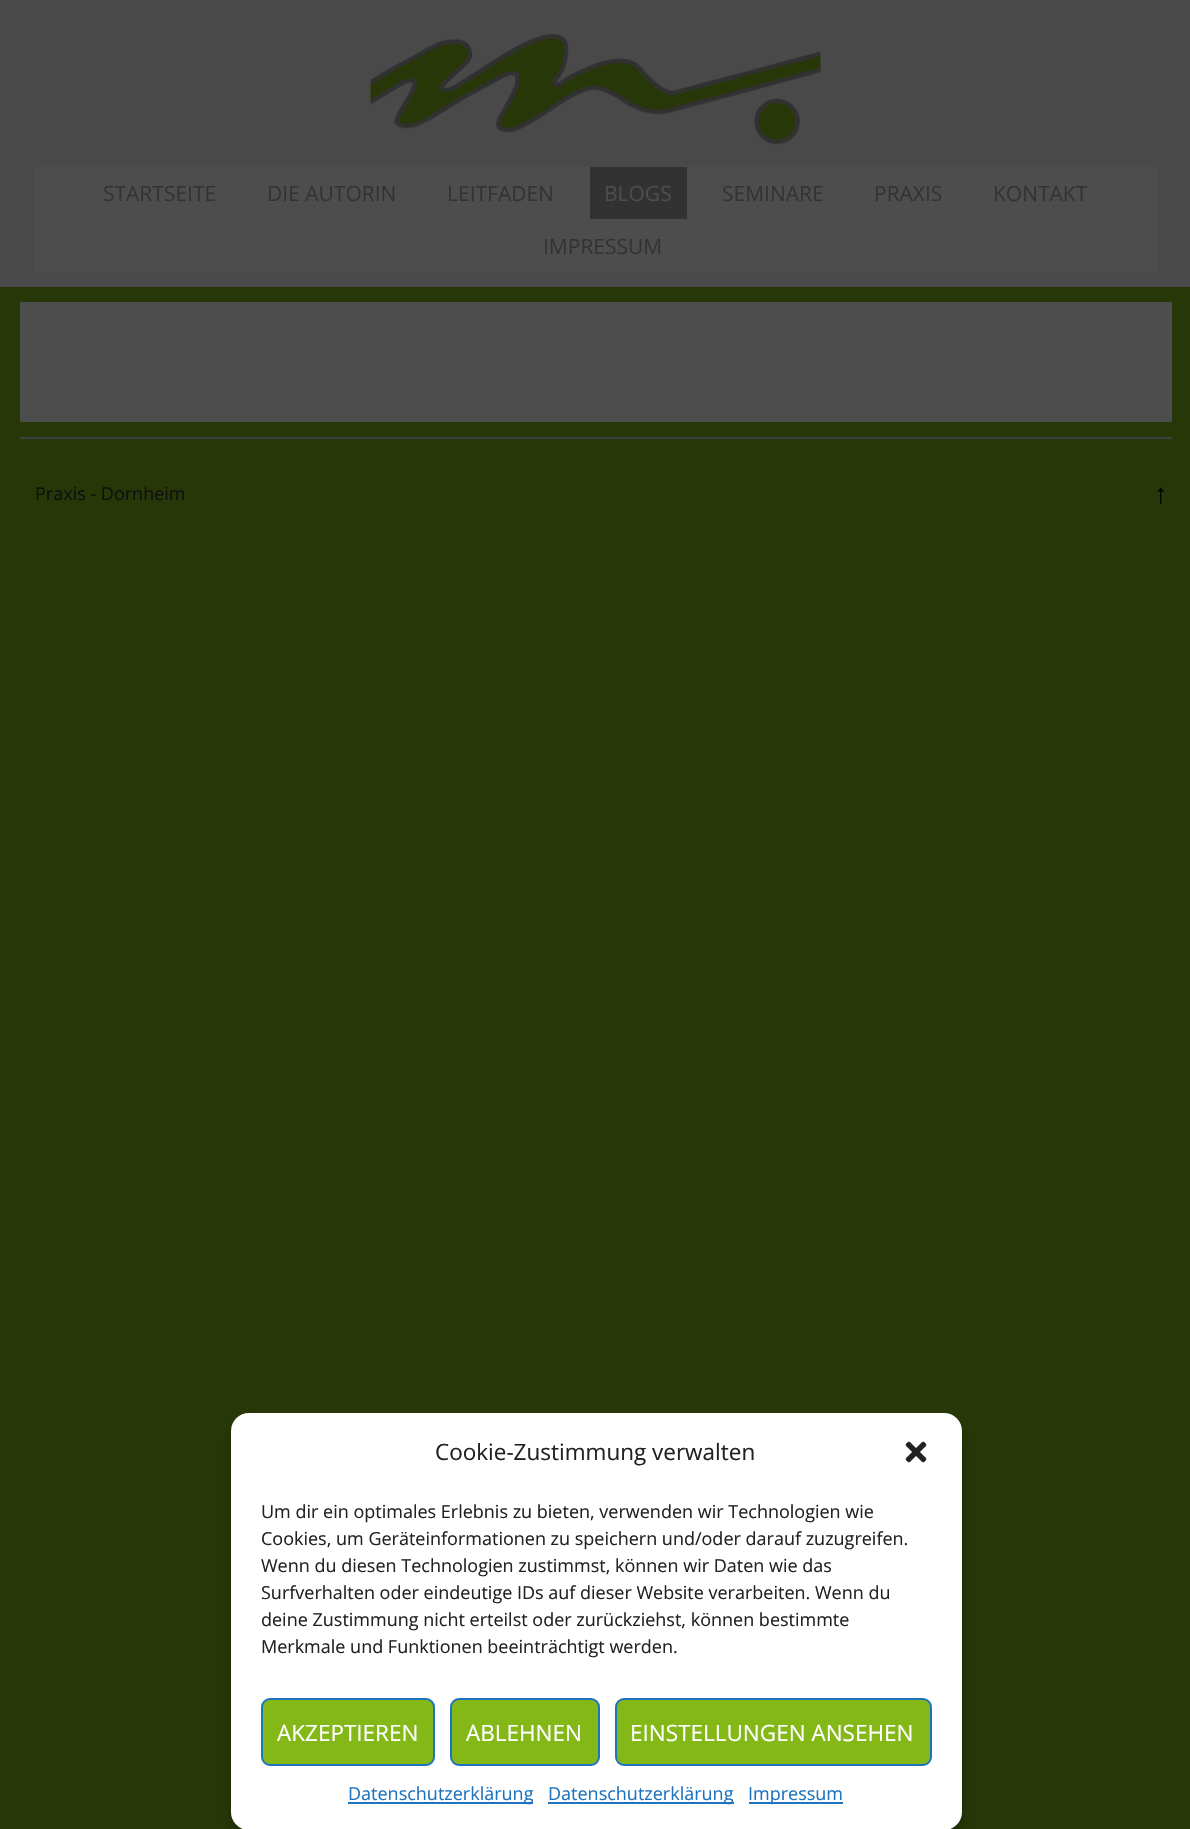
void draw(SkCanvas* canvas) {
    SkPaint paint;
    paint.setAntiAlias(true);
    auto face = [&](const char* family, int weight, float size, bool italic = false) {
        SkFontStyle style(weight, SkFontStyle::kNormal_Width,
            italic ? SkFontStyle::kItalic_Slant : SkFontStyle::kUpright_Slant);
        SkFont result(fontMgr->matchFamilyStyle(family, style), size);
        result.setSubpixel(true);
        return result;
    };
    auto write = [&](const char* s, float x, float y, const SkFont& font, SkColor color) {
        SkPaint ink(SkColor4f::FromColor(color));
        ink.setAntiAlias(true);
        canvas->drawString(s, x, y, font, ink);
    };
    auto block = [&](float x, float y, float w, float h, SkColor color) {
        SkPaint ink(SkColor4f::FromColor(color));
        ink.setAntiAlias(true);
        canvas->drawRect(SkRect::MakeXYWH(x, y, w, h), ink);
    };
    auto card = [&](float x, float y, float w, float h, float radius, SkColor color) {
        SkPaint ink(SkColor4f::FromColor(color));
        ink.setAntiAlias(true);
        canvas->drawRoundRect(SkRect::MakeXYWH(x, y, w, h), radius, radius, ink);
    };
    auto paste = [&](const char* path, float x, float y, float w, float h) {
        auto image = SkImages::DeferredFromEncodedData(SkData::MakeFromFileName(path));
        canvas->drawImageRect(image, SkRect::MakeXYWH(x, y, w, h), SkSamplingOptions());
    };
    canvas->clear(SkColorSetRGB(39, 55, 7));
    block(0, 0, 1190, 287, SkColorSetRGB(73, 73, 73));
    paste("pic1.png", 370, 33, 451, 112);
    block(35, 167, 1122, 105, SkColorSetRGB(77, 77, 77));
    auto kFont1 = face("Open Sans", 400, 21);
    write("STARTSEITE", 103, 201, kFont1, SkColorSetRGB(51, 51, 51));
    write("DIE AUTORIN", 267, 201, kFont1, SkColorSetRGB(51, 51, 51));
    write("LEITFADEN", 447, 201, kFont1, SkColorSetRGB(51, 51, 51));
    block(590, 167, 97, 52, SkColorSetRGB(50, 50, 50));
    write("BLOGS", 604, 201, kFont1, SkColorSetRGB(77, 77, 77));
    write("SEMINARE", 722, 201, kFont1, SkColorSetRGB(51, 51, 51));
    write("PRAXIS", 874, 201, kFont1, SkColorSetRGB(51, 51, 51));
    write("KONTAKT", 993, 201, kFont1, SkColorSetRGB(51, 51, 51));
    write("IMPRESSUM", 543, 254, kFont1, SkColorSetRGB(51, 51, 51));
    block(20, 302, 1152, 120, SkColorSetRGB(77, 77, 77));
    block(20, 437, 1152, 2, SkColorSetRGB(64, 64, 64));
    auto kFont2 = face("Open Sans", 400, 18);
    write("Praxis - Dornheim", 35, 500, kFont2, SkColorSetRGB(15, 15, 15));
    auto kFont3 = face("Liberation Sans", 400, 27);
    write("↑", 1154, 503, kFont3, SK_ColorBLACK);
    paint.setColor(SkColorSetARGB(59, 0, 0, 0));
    paint.setMaskFilter(SkMaskFilter::MakeBlur(kNormal_SkBlurStyle, 4.5f));
    canvas->drawRoundRect(SkRect::MakeXYWH(231, 1422, 731, 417), 18, 18, paint);
    paint.setMaskFilter(nullptr);
    card(231, 1413, 731, 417, 18, SK_ColorWHITE);
    auto kFont4 = face("Open Sans", 400, 22.5f);
    write("Cookie-Zustimmung verwalten", 435, 1460, kFont4, SkColorSetRGB(34, 34, 34));
    paste("pic2.png", 905, 1441, 22, 22);
    write("Um dir ein optimales Erlebnis zu bieten, verwenden wir Technologien wie", 261, 1518, kFont2, SkColorSetRGB(34, 34, 34));
    write("Cookies, um Geräteinformationen zu speichern und/oder darauf zuzugreifen.", 261, 1545, kFont2, SkColorSetRGB(34, 34, 34));
    write("Wenn du diesen Technologien zustimmst, können wir Daten wie das", 261, 1572, kFont2, SkColorSetRGB(34, 34, 34));
    write("Surfverhalten oder eindeutige IDs auf dieser Website verarbeiten. Wenn du", 261, 1599, kFont2, SkColorSetRGB(34, 34, 34));
    write("deine Zustimmung nicht erteilst oder zurückziehst, können bestimmte", 261, 1626, kFont2, SkColorSetRGB(34, 34, 34));
    write("Merkmale und Funktionen beeinträchtigt werden.", 261, 1653, kFont2, SkColorSetRGB(34, 34, 34));
    paint.setColor(SkColorSetRGB(131, 184, 23));
    canvas->drawRoundRect(SkRect::MakeXYWH(262, 1699, 172, 66), 8, 8, paint);
    paint.setStyle(SkPaint::kStroke_Style);
    paint.setStrokeWidth(2);
    paint.setColor(SkColorSetRGB(30, 115, 190));
    canvas->drawRoundRect(SkRect::MakeXYWH(262, 1699, 172, 66), 8, 8, paint);
    write("AKZEPTIEREN", 277, 1741, kFont4, SK_ColorWHITE);
    paint.setStyle(SkPaint::kFill_Style);
    paint.setColor(SkColorSetRGB(131, 184, 23));
    canvas->drawRoundRect(SkRect::MakeXYWH(451, 1699, 148, 66), 8, 8, paint);
    paint.setStyle(SkPaint::kStroke_Style);
    paint.setColor(SkColorSetRGB(30, 115, 190));
    canvas->drawRoundRect(SkRect::MakeXYWH(451, 1699, 148, 66), 8, 8, paint);
    write("ABLEHNEN", 466, 1741, kFont4, SK_ColorWHITE);
    paint.setStyle(SkPaint::kFill_Style);
    paint.setColor(SkColorSetRGB(131, 184, 23));
    canvas->drawRoundRect(SkRect::MakeXYWH(616, 1699, 315, 66), 8, 8, paint);
    paint.setStyle(SkPaint::kStroke_Style);
    paint.setColor(SkColorSetRGB(30, 115, 190));
    canvas->drawRoundRect(SkRect::MakeXYWH(616, 1699, 315, 66), 8, 8, paint);
    write("EINSTELLUNGEN ANSEHEN", 630, 1741, kFont4, SK_ColorWHITE);
    block(348, 1802, 185, 2, SkColorSetRGB(30, 115, 190));
    write("Datenschutzerklärung", 348, 1800, kFont2, SkColorSetRGB(30, 115, 190));
    block(548, 1802, 186, 2, SkColorSetRGB(30, 115, 190));
    write("Datenschutzerklärung", 548, 1800, kFont2, SkColorSetRGB(30, 115, 190));
    block(749, 1802, 94, 2, SkColorSetRGB(30, 115, 190));
    write("Impressum", 748, 1800, kFont2, SkColorSetRGB(30, 115, 190));
}
